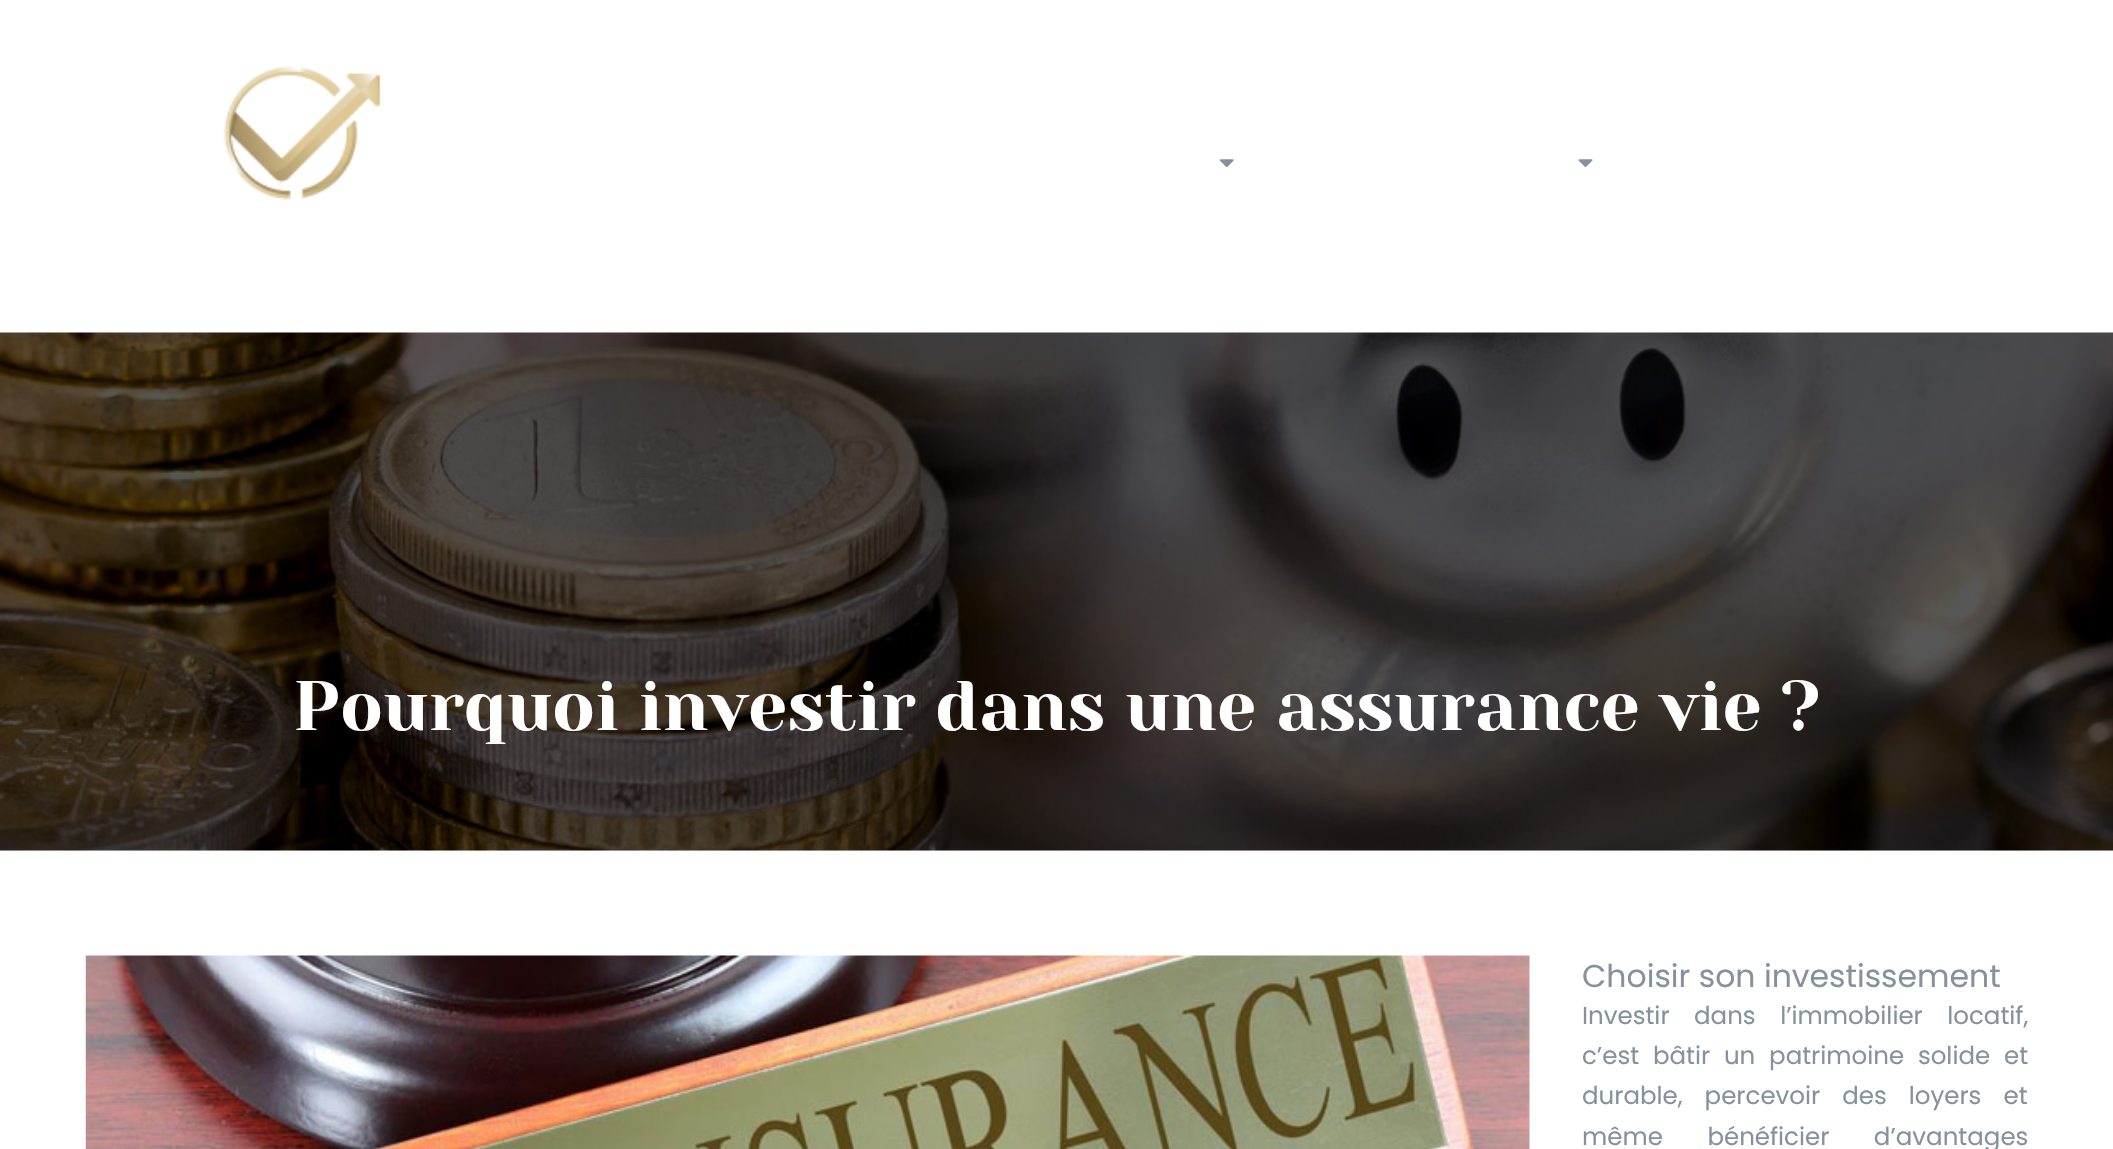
void draw(SkCanvas* canvas) {
    SkPaint paint;
    paint.setAntiAlias(true);
    auto face = [&](const char* family, int weight, float size, bool italic = false) {
        SkFontStyle style(weight, SkFontStyle::kNormal_Width,
            italic ? SkFontStyle::kItalic_Slant : SkFontStyle::kUpright_Slant);
        SkFont result(fontMgr->matchFamilyStyle(family, style), size);
        result.setSubpixel(true);
        return result;
    };
    auto write = [&](const char* s, float x, float y, const SkFont& font, SkColor color) {
        SkPaint ink(SkColor4f::FromColor(color));
        ink.setAntiAlias(true);
        canvas->drawString(s, x, y, font, ink);
    };
    auto writeSpaced = [&](const char* s, float x, float y, const SkFont& font, const SkPaint& ink, float letter, float word) {
        std::vector<SkGlyphID> glyphs(font.countText(s, strlen(s), SkTextEncoding::kUTF8));
        std::vector<float> xs(glyphs.size());
        font.textToGlyphs(s, strlen(s), SkTextEncoding::kUTF8, glyphs);
        font.getXPos(glyphs, xs, x);
        float extra = 0;
        for (size_t i = 0; i < glyphs.size(); i++) {
            xs[i] += extra;
            extra += letter + word * (glyphs[i] == font.unicharToGlyph(' '));
        }
        canvas->drawTextBlob(SkTextBlob::MakeFromPosHGlyphs(glyphs, xs, y, font), 0, 0, ink);
    };
    auto block = [&](float x, float y, float w, float h, SkColor color) {
        SkPaint ink(SkColor4f::FromColor(color));
        ink.setAntiAlias(true);
        canvas->drawRect(SkRect::MakeXYWH(x, y, w, h), ink);
    };
    auto paste = [&](const char* path, float x, float y, float w, float h) {
        auto image = SkImages::DeferredFromEncodedData(SkData::MakeFromFileName(path));
        canvas->drawImageRect(image, SkRect::MakeXYWH(x, y, w, h), SkSamplingOptions());
    };
    canvas->clear(SK_ColorWHITE);
    paste("pic1.png", 223, 66, 158, 134);
    paste("pic2.png", 1219, 159, 15, 9);
    paste("pic3.png", 1578, 159, 15, 9);
    block(0, 850, 2113, 1, SkColorSetRGB(238, 238, 238));
    paste("pic4.png", 0, 332, 2113, 519);
    auto kFont1 = face("Yeseva One", 400, 70);
    write("Pourquoi investir dans une assurance vie ?", 293, 730, kFont1, SK_ColorWHITE);
    paste("pic5.png", 85, 955, 1445, 194);
    auto kFont2 = face("Poppins", 400, 31.5f);
    write("Choisir son investissement", 1582, 987, kFont2, SkColorSetRGB(134, 145, 158));
    auto kFont3 = face("Poppins", 400, 24.5f);
    paint.setColor(SkColorSetRGB(134, 145, 158));
    writeSpaced("Investir dans l’immobilier locatif,", 1582, 1024, kFont3, paint, 0, 18);
    writeSpaced("c’est bâtir un patrimoine solide et", 1582, 1064, kFont3, paint, 0, 7.25f);
    writeSpaced("durable, percevoir des loyers et", 1582, 1104, kFont3, paint, 0, 15.5f);
    writeSpaced("même bénéficier d’avantages", 1582, 1145, kFont3, paint, 0, 38);
}
